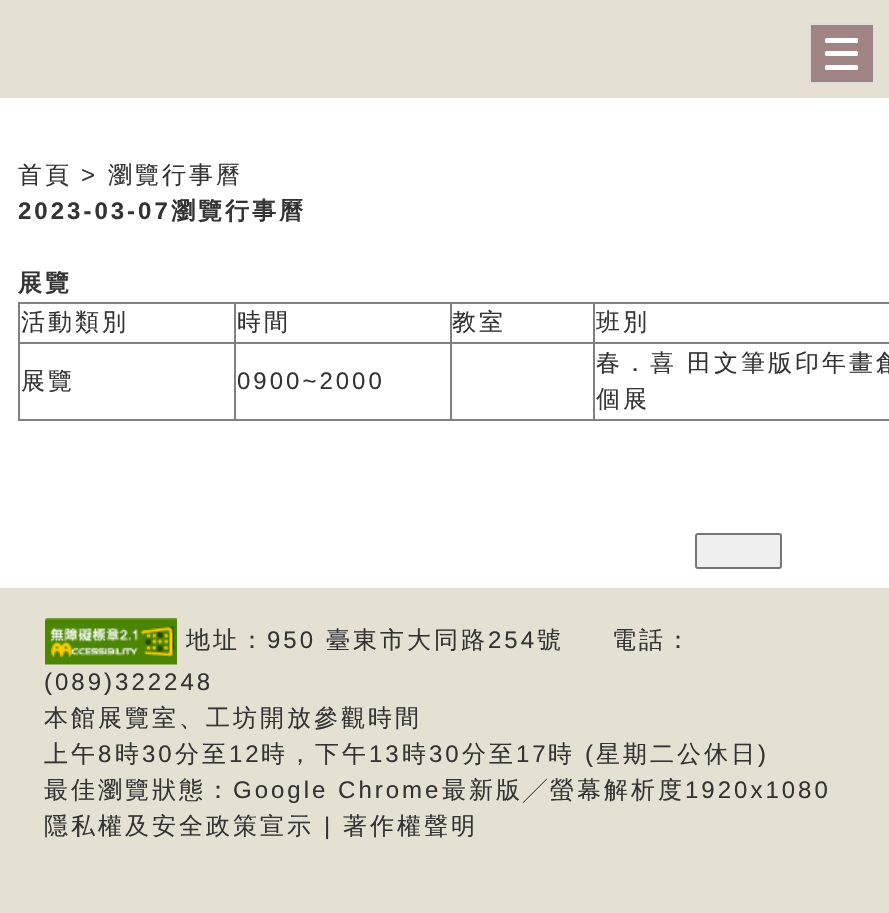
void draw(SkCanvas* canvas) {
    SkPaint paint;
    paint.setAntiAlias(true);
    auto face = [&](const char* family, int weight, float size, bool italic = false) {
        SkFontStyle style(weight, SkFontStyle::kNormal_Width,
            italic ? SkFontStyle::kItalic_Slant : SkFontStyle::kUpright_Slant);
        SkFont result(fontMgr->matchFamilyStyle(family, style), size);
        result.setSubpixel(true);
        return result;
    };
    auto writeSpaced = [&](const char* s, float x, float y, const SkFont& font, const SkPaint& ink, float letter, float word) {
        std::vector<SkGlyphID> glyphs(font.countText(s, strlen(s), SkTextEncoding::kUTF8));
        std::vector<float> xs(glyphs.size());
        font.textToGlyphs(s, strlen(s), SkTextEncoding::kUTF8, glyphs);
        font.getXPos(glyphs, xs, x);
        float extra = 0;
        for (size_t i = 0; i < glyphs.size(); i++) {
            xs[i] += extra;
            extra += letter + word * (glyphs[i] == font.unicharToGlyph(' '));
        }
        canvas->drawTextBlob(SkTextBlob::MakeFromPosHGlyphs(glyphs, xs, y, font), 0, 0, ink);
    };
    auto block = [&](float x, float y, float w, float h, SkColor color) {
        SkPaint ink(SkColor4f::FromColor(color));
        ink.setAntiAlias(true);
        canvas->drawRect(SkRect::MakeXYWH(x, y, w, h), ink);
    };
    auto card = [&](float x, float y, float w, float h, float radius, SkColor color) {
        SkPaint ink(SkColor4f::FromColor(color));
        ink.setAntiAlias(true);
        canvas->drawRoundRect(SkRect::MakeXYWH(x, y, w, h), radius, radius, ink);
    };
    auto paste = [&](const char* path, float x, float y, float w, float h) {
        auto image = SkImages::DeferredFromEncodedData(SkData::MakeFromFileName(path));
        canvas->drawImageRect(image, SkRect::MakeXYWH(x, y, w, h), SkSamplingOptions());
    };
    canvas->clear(SK_ColorWHITE);
    block(0, 0, 889, 98, SkColorSetRGB(228, 225, 211));
    paint.setColor(SkColorSetRGB(160, 132, 131));
    canvas->drawRect(SkRect::MakeXYWH(810, 24, 64, 59), paint);
    paint.setStyle(SkPaint::kStroke_Style);
    paint.setStrokeWidth(2);
    paint.setColor(SkColorSetRGB(221, 221, 221));
    canvas->drawRect(SkRect::MakeXYWH(810, 24, 64, 59), paint);
    card(825, 38, 33, 5, 1.5f, SK_ColorWHITE);
    card(825, 51, 33, 5, 1.5f, SK_ColorWHITE);
    card(825, 65, 33, 5, 1.5f, SK_ColorWHITE);
    auto kFont1 = face("WenQuanYi Zen Hei", 500, 24);
    paint.setStyle(SkPaint::kFill_Style);
    paint.setColor(SkColorSetRGB(51, 51, 51));
    writeSpaced("首頁", 18, 183, kFont1, paint, 3, 0);
    auto kFont2 = face("Liberation Sans", 400, 24);
    writeSpaced(">", 81, 183, kFont2, paint, 3, 0);
    writeSpaced("瀏覽行事曆", 108, 183, kFont1, paint, 3, 0);
    auto kFont3 = face("Liberation Sans", 700, 24);
    writeSpaced("2023-03-07", 18, 219, kFont3, paint, 3, 0);
    auto kFont4 = face("WenQuanYi Zen Hei", 700, 24);
    writeSpaced("瀏覽行事曆", 171, 219, kFont4, paint, 3, 0);
    writeSpaced("展覽", 18, 291, kFont4, paint, 3, 0);
    block(18, 302, 871, 2, SkColorSetRGB(128, 128, 128));
    block(18, 419, 871, 2, SkColorSetRGB(128, 128, 128));
    block(18, 302, 2, 118, SkColorSetRGB(128, 128, 128));
    writeSpaced("活動類別", 21, 330, kFont1, paint, 3, 0);
    block(593, 342, 296, 2, SkColorSetRGB(128, 128, 128));
    block(593, 342, 2, 78, SkColorSetRGB(128, 128, 128));
    block(450, 342, 144, 2, SkColorSetRGB(128, 128, 128));
    block(450, 342, 2, 78, SkColorSetRGB(128, 128, 128));
    block(234, 342, 218, 2, SkColorSetRGB(128, 128, 128));
    block(234, 342, 2, 78, SkColorSetRGB(128, 128, 128));
    block(18, 342, 218, 2, SkColorSetRGB(128, 128, 128));
    block(234, 302, 2, 42, SkColorSetRGB(128, 128, 128));
    writeSpaced("時間", 237, 330, kFont1, paint, 3, 0);
    block(450, 302, 2, 42, SkColorSetRGB(128, 128, 128));
    writeSpaced("教室", 452, 330, kFont1, paint, 3, 0);
    block(593, 302, 2, 42, SkColorSetRGB(128, 128, 128));
    writeSpaced("班別", 596, 330, kFont1, paint, 3, 0);
    writeSpaced("展覽", 21, 389, kFont1, paint, 3, 0);
    writeSpaced("0900~2000", 237, 389, kFont2, paint, 3, 0);
    writeSpaced("春．喜", 596, 371, kFont1, paint, 3, 0);
    writeSpaced("田文筆版印年畫創", 687, 371, kFont1, paint, 3, 0);
    writeSpaced("個展", 596, 407, kFont1, paint, 3, 0);
    paint.setColor(SkColorSetRGB(239, 239, 239));
    canvas->drawRoundRect(SkRect::MakeXYWH(696, 534, 85, 34), 2, 2, paint);
    paint.setStyle(SkPaint::kStroke_Style);
    paint.setColor(SkColorSetRGB(118, 118, 118));
    canvas->drawRoundRect(SkRect::MakeXYWH(696, 534, 85, 34), 2, 2, paint);
    block(0, 588, 889, 325, SkColorSetRGB(228, 225, 211));
    paste("pic1.png", 45, 618, 132, 47);
    paint.setStyle(SkPaint::kFill_Style);
    paint.setColor(SkColorSetRGB(51, 51, 51));
    writeSpaced("地址：", 186, 648, kFont1, paint, 3, 0);
    writeSpaced("950", 267, 648, kFont2, paint, 3, 0);
    writeSpaced("臺東市大同路", 326, 648, kFont1, paint, 3, 0);
    writeSpaced("254", 488, 648, kFont2, paint, 3, 0);
    writeSpaced("號", 537, 648, kFont1, paint, 3, 0);
    writeSpaced("電話：", 612, 648, kFont1, paint, 3, 0);
    writeSpaced("(089)322248", 44, 690, kFont2, paint, 3, 0);
    writeSpaced("本館展覽室、工坊開放參觀時間", 44, 726, kFont1, paint, 3, 0);
    writeSpaced("上午", 44, 762, kFont1, paint, 3, 0);
    writeSpaced("8", 98, 762, kFont2, paint, 3, 0);
    writeSpaced("時", 115, 762, kFont1, paint, 3, 0);
    writeSpaced("30", 142, 762, kFont2, paint, 3, 0);
    writeSpaced("分至", 175, 762, kFont1, paint, 3, 0);
    writeSpaced("12", 229, 762, kFont2, paint, 3, 0);
    writeSpaced("時，下午", 261, 762, kFont1, paint, 3, 0);
    writeSpaced("13", 369, 762, kFont2, paint, 3, 0);
    writeSpaced("時", 402, 762, kFont1, paint, 3, 0);
    writeSpaced("30", 429, 762, kFont2, paint, 3, 0);
    writeSpaced("分至", 462, 762, kFont1, paint, 3, 0);
    writeSpaced("17", 516, 762, kFont2, paint, 3, 0);
    writeSpaced("時", 548, 762, kFont1, paint, 3, 0);
    writeSpaced("(", 585, 762, kFont2, paint, 3, 0);
    writeSpaced("星期二公休日", 596, 762, kFont1, paint, 3, 0);
    writeSpaced(")", 758, 762, kFont2, paint, 3, 0);
    writeSpaced("最佳瀏覽狀態：", 44, 798, kFont1, paint, 3, 0);
    writeSpaced("Google Chrome", 233, 798, kFont2, paint, 3, 0);
    writeSpaced("最新版╱螢幕解析度", 442, 798, kFont1, paint, 3, 0);
    writeSpaced("1920x1080", 685, 798, kFont2, paint, 3, 0);
    writeSpaced("隱私權及安全政策宣示", 44, 834, kFont1, paint, 3, 0);
    writeSpaced("|", 324, 834, kFont2, paint, 3, 0);
    writeSpaced("著作權聲明", 343, 834, kFont1, paint, 3, 0);
}
